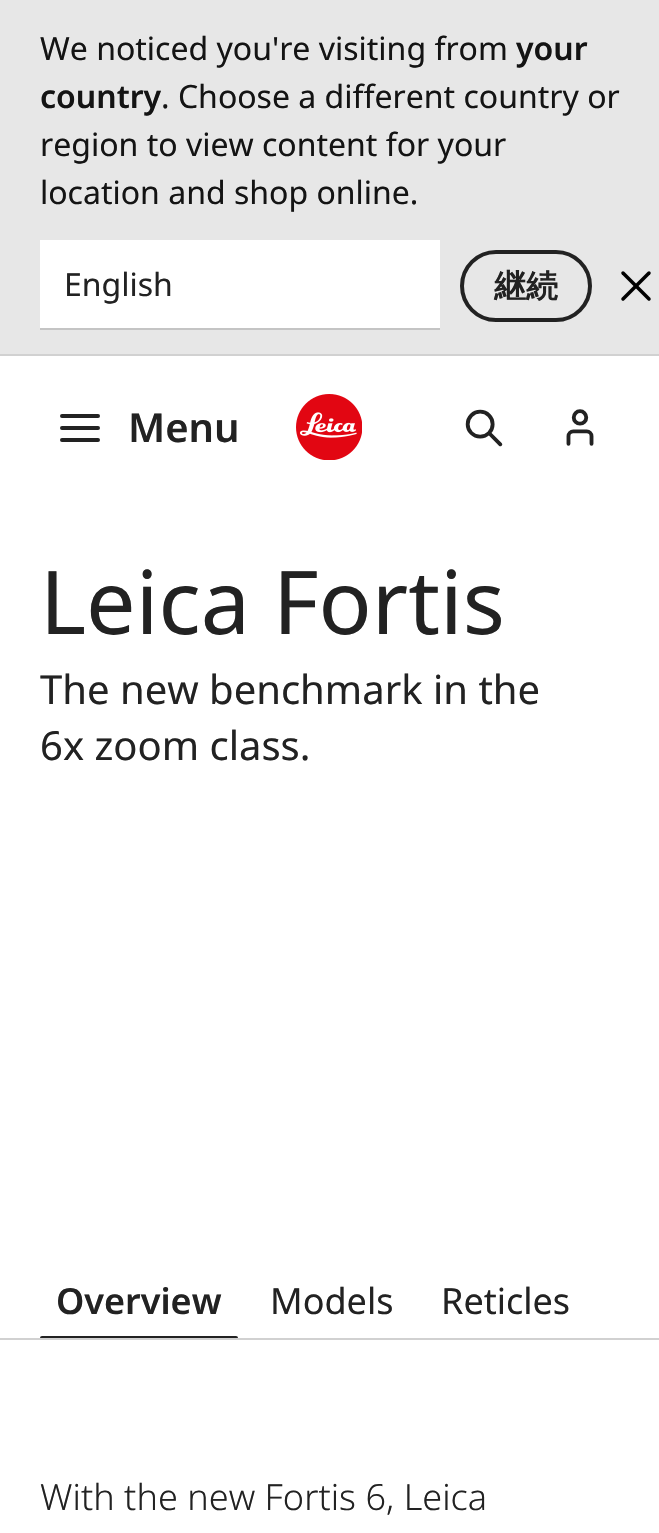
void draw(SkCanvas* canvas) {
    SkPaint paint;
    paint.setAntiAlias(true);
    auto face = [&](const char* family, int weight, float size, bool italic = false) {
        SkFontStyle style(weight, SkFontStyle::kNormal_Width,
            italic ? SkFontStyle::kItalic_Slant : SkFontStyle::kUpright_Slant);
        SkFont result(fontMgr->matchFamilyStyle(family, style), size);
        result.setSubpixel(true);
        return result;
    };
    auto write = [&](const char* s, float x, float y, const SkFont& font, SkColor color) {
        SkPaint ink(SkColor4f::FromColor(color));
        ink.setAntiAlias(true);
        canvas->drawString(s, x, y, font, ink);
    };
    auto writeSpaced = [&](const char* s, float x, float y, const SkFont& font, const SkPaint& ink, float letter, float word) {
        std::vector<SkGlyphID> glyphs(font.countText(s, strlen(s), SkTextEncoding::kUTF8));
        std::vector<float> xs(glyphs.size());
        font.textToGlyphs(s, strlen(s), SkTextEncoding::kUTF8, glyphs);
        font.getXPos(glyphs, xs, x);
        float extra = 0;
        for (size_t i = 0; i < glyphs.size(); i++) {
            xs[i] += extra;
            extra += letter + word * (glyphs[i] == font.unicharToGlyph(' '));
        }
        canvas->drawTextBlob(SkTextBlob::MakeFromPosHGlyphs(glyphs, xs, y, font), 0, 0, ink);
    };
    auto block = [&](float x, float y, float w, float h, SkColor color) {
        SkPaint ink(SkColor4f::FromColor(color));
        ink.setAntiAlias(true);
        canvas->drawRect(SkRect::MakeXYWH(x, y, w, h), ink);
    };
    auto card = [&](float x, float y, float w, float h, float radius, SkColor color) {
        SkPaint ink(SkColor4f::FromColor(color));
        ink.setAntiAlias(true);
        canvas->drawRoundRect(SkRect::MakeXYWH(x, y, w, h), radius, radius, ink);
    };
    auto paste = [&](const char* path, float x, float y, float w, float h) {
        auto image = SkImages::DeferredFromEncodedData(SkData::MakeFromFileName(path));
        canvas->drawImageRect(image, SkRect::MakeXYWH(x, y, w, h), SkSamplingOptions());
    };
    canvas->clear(SK_ColorWHITE);
    block(0, 0, 659, 354, SkColorSetRGB(231, 231, 231));
    block(0, 354, 659, 2, SkColorSetRGB(209, 209, 209));
    auto kFont1 = face("Noto Sans", 400, 32);
    write("We noticed you're visiting from", 40, 60, kFont1, SkColorSetRGB(20, 20, 20));
    auto kFont2 = face("Noto Sans", 600, 32);
    write("your", 516, 60, kFont2, SkColorSetRGB(20, 20, 20));
    write("country", 40, 108, kFont2, SkColorSetRGB(20, 20, 20));
    write(". Choose a different country or", 161, 108, kFont1, SkColorSetRGB(20, 20, 20));
    write("region to view content for your", 40, 156, kFont1, SkColorSetRGB(20, 20, 20));
    write("location and shop online.", 40, 204, kFont1, SkColorSetRGB(20, 20, 20));
    block(40, 240, 400, 88, SK_ColorWHITE);
    block(40, 328, 400, 2, SkColorSetRGB(196, 196, 196));
    write("English", 64, 296, kFont1, SkColorSetRGB(34, 34, 34));
    paint.setStyle(SkPaint::kStroke_Style);
    paint.setStrokeWidth(4);
    paint.setColor(SkColorSetRGB(34, 34, 34));
    canvas->drawRoundRect(SkRect::MakeXYWH(462, 252, 128, 68), 34, 34, paint);
    auto kFont3 = face("WenQuanYi Zen Hei", 700, 32);
    write("継続", 494, 297, kFont3, SkColorSetRGB(34, 34, 34));
    paint.setStrokeWidth(3.5f);
    paint.setStrokeCap(SkPaint::kRound_Cap);
    paint.setStrokeJoin(SkPaint::kRound_Join);
    paint.setColor(SK_ColorBLACK);
    canvas->drawPath(SkPathBuilder().moveTo(649, 273).lineTo(623, 299).detach(), paint);
    paint.setStrokeJoin(SkPaint::kMiter_Join);
    canvas->drawPath(SkPathBuilder().moveTo(623, 273).lineTo(649, 299).detach(), paint);
    paste("pic1.png", 60, 414, 40, 28);
    auto kFont4 = face("Noto Sans", 600, 40);
    write("Menu", 128, 442, kFont4, SkColorSetRGB(34, 34, 34));
    paste("pic2.png", 296, 394, 66, 66);
    paste("pic3.png", 465, 409, 38, 38);
    paste("pic4.png", 566, 409, 28, 37);
    auto kFont5 = face("Noto Sans", 400, 88);
    write("Leica Fortis", 40, 634, kFont5, SkColorSetRGB(34, 34, 34));
    auto kFont6 = face("Noto Sans", 400, 40);
    write("The new benchmark in the", 40, 704, kFont6, SkColorSetRGB(34, 34, 34));
    write("6x zoom class.", 40, 760, kFont6, SkColorSetRGB(34, 34, 34));
    auto kFont7 = face("Noto Sans", 600, 36);
    write("Overview", 56, 1314, kFont7, SkColorSetRGB(34, 34, 34));
    card(40, 1336, 198, 4, 2, SkColorSetRGB(34, 34, 34));
    auto kFont8 = face("Noto Sans", 400, 36);
    write("Models", 270, 1314, kFont8, SkColorSetRGB(34, 34, 34));
    write("Reticles", 441, 1314, kFont8, SkColorSetRGB(34, 34, 34));
    block(0, 1338, 659, 2, SkColorSetRGB(209, 209, 209));
    auto kFont9 = face("Noto Sans", 300, 36);
    paint.setStyle(SkPaint::kFill_Style);
    paint.setColor(SkColorSetRGB(34, 34, 34));
    writeSpaced("With the new Fortis 6, Leica", 40, 1510, kFont9, paint, 0.05f, 0);
}
